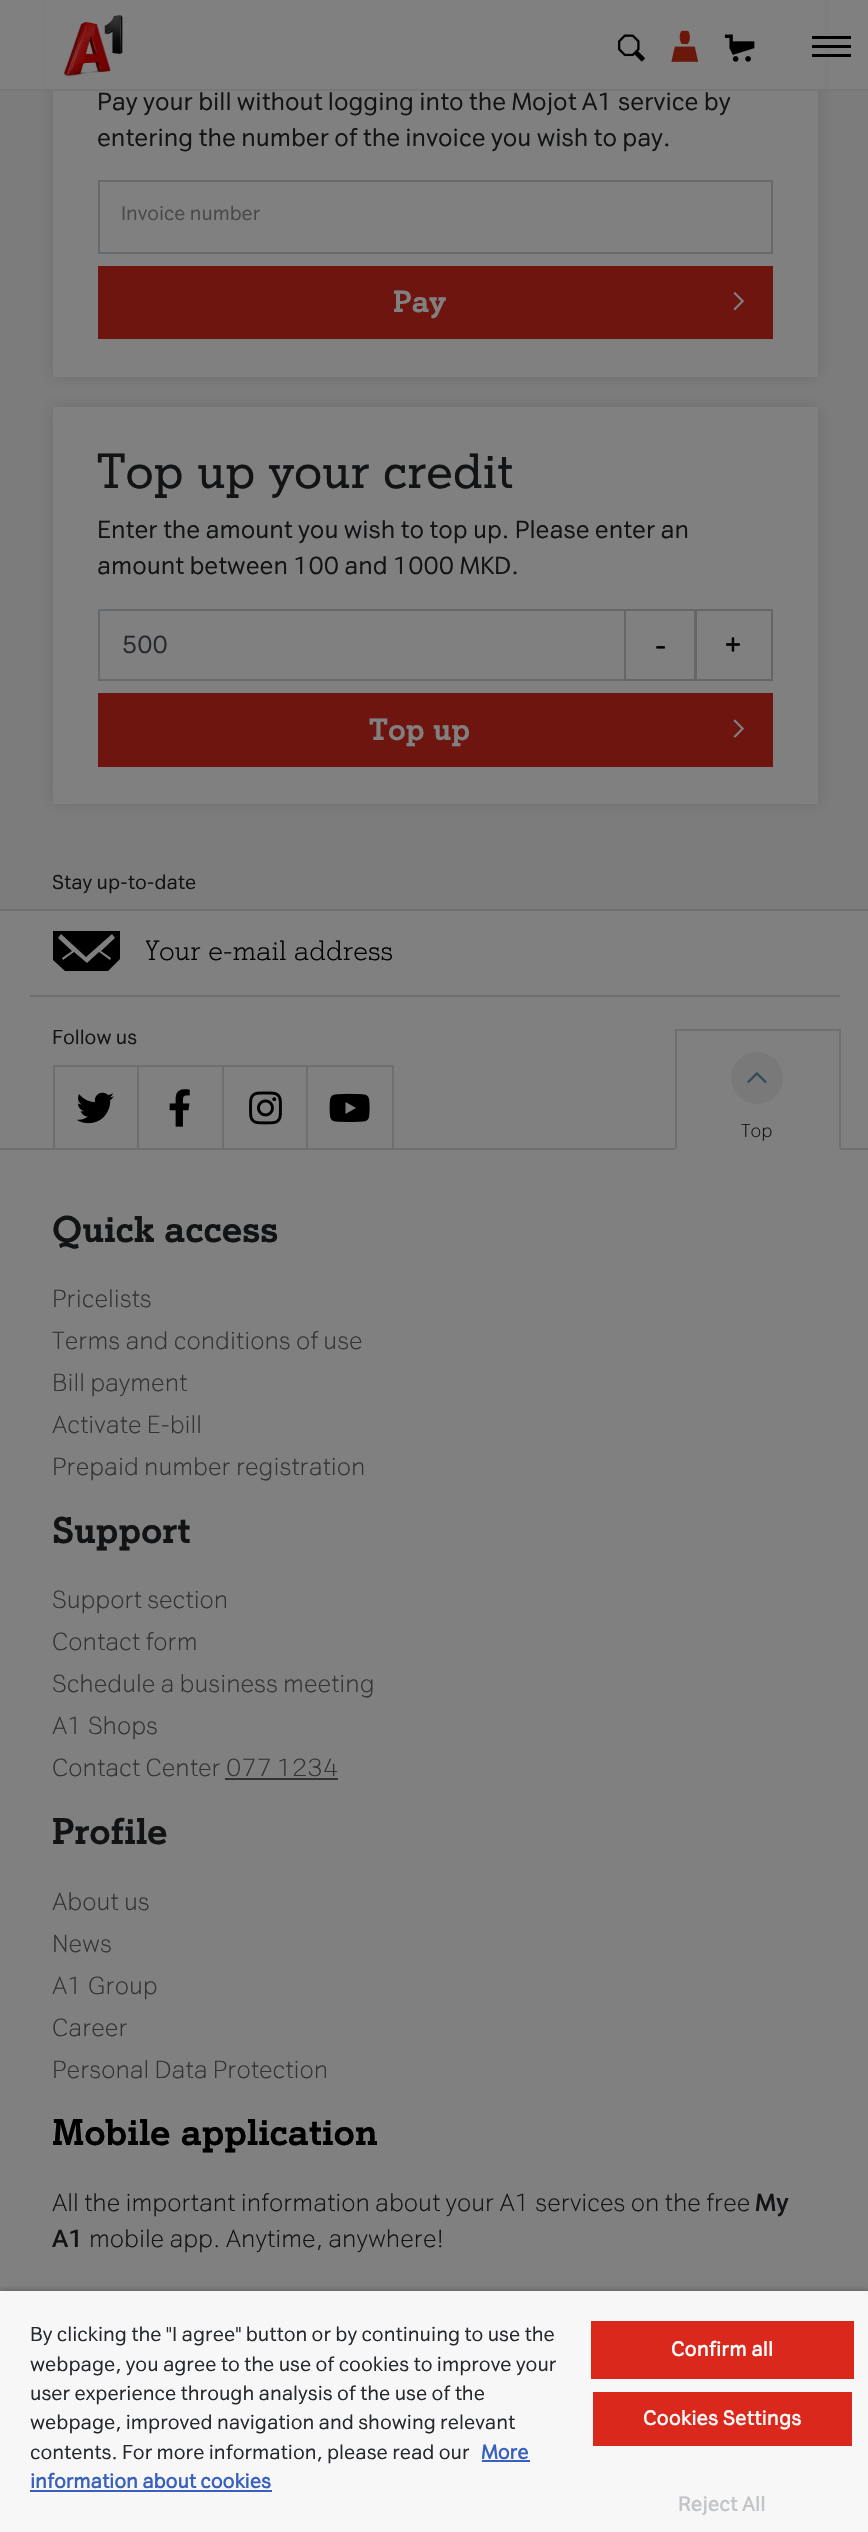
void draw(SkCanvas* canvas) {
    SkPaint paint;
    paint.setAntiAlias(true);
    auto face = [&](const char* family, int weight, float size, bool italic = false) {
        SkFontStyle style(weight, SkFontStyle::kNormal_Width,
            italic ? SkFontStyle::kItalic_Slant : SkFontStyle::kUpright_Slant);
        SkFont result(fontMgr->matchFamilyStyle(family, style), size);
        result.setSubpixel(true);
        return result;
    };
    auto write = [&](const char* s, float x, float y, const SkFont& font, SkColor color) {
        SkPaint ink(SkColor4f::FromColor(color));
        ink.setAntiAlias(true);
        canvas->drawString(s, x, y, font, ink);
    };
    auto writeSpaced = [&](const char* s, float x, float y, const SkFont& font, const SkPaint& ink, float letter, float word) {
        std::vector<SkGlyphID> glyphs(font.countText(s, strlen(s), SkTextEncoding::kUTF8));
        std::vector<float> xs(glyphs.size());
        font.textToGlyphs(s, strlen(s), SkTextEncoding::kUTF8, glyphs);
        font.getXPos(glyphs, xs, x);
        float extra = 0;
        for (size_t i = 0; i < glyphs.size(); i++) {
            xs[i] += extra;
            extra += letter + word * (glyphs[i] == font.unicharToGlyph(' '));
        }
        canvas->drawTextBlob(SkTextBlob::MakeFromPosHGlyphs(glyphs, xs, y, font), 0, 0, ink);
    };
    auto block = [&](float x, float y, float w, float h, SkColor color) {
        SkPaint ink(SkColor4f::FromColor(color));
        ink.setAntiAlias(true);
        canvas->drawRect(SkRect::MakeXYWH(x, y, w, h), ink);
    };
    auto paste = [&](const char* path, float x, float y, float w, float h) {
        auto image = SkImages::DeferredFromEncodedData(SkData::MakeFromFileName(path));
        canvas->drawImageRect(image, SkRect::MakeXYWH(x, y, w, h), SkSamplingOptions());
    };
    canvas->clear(SkColorSetRGB(128, 128, 128));
    block(0, 91, 868, 818, SkColorSetRGB(124, 124, 124));
    paint.setColor(SkColorSetRGB(110, 110, 110));
    paint.setMaskFilter(SkMaskFilter::MakeBlur(kNormal_SkBlurStyle, 7));
    canvas->drawRect(SkRect::MakeXYWH(53, -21, 765, 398), paint);
    paint.setMaskFilter(nullptr);
    block(46, 0, 779, 89, SkColorSetRGB(128, 128, 128));
    block(0, 89, 868, 2, SkColorSetRGB(119, 119, 119));
    paste("pic1.png", 63, 15, 60, 62);
    paste("pic2.png", 618, 34, 28, 28);
    paste("pic3.png", 671, 30, 27, 32);
    paste("pic4.png", 724, 34, 31, 28);
    block(812, 45, 39, 3, SK_ColorBLACK);
    block(812, 36, 39, 3, SK_ColorBLACK);
    block(812, 54, 39, 3, SK_ColorBLACK);
    block(53, 91, 765, 286, SkColorSetRGB(128, 128, 128));
    auto kFont1 = face("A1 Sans", 400, 24);
    write("Pay your bill without logging into the Mojot A1 service by", 97, 110, kFont1, SkColorSetRGB(17, 19, 21));
    write("entering the number of the invoice you wish to pay.", 97, 146, kFont1, SkColorSetRGB(17, 19, 21));
    paint.setStyle(SkPaint::kStroke_Style);
    paint.setStrokeWidth(2);
    paint.setColor(SkColorSetRGB(103, 106, 109));
    canvas->drawRect(SkRect::MakeXYWH(99, 181, 673, 72), paint);
    auto kFont2 = face("A1 Sans", 400, 19.25f);
    write("Invoice number", 121, 220, kFont2, SkColorSetRGB(72, 73, 74));
    block(98, 266, 675, 73, SkColorSetRGB(109, 21, 14));
    auto kFont3 = face("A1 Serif", 700, 30);
    write("Pay", 393, 312, kFont3, SkColorSetRGB(128, 128, 128));
    paste("pic5.png", 733, 292, 11, 19);
    paint.setStyle(SkPaint::kFill_Style);
    paint.setColor(SkColorSetRGB(110, 110, 110));
    paint.setMaskFilter(SkMaskFilter::MakeBlur(kNormal_SkBlurStyle, 7));
    canvas->drawRect(SkRect::MakeXYWH(53, 407, 765, 397), paint);
    paint.setMaskFilter(nullptr);
    block(53, 407, 765, 397, SkColorSetRGB(128, 128, 128));
    auto kFont4 = face("A1 Serif", 400, 48);
    write("Top up your credit", 97, 488, kFont4, SkColorSetRGB(17, 19, 21));
    write("Enter the amount you wish to top up. Please enter an", 97, 538, kFont1, SkColorSetRGB(17, 19, 21));
    write("amount between 100 and 1000 MKD.", 97, 574, kFont1, SkColorSetRGB(17, 19, 21));
    paint.setStyle(SkPaint::kStroke_Style);
    paint.setColor(SkColorSetRGB(103, 106, 109));
    canvas->drawRect(SkRect::MakeXYWH(99, 610, 526, 70), paint);
    write("500", 122, 653, kFont1, SkColorSetRGB(37, 40, 44));
    paint.setColor(SkColorSetRGB(102, 102, 102));
    canvas->drawRect(SkRect::MakeXYWH(625, 610, 70, 70), paint);
    auto kFont5 = face("A1 Serif", 400, 32);
    write("-", 655, 656, kFont5, SK_ColorBLACK);
    canvas->drawRect(SkRect::MakeXYWH(696, 610, 76, 70), paint);
    write("+", 724, 656, kFont5, SK_ColorBLACK);
    block(98, 693, 675, 74, SkColorSetRGB(109, 21, 14));
    write("Top up", 369, 740, kFont3, SkColorSetRGB(128, 128, 128));
    paste("pic6.png", 733, 719, 11, 19);
    block(0, 909, 868, 2, SkColorSetRGB(111, 111, 111));
    block(0, 1148, 868, 2, SkColorSetRGB(111, 111, 111));
    auto kFont6 = face("A1 Sans", 400, 19.5f);
    write("Stay up-to-date", 52, 889, kFont6, SkColorSetRGB(17, 19, 21));
    canvas->save();
    canvas->clipRect(SkRect::MakeXYWH(53, 918, 67, 68));
    paint.setStyle(SkPaint::kFill_Style);
    paint.setColor(SK_ColorBLACK);
    canvas->drawPath(SkPathBuilder().moveTo(52, 931).lineTo(52, 959).lineTo(65, 971).lineTo(108, 971).lineTo(120, 959).lineTo(120, 931).close().moveTo(111, 958).lineTo(110, 960).lineTo(99, 952).lineTo(87, 963).lineTo(74, 952).lineTo(63, 960).lineTo(62, 958).lineTo(72, 951).lineTo(58, 938).lineTo(61, 934).lineTo(86, 957).lineTo(112, 934).lineTo(115, 938).lineTo(101, 951).close().detach(), paint);
    canvas->restore();
    canvas->save();
    canvas->clipRect(SkRect::MakeXYWH(146, 933, 654, 38));
    auto kFont7 = face("A1 Serif", 300, 27);
    write("Your e-mail address", 145, 960, kFont7, SK_ColorBLACK);
    canvas->restore();
    block(30, 995, 810, 2, SkColorSetRGB(111, 111, 111));
    write("Follow us", 52, 1044, kFont6, SkColorSetRGB(17, 19, 21));
    block(53, 1065, 340, 2, SkColorSetRGB(111, 111, 111));
    block(53, 1065, 2, 83, SkColorSetRGB(111, 111, 111));
    paste("pic7.png", 76, 1092, 38, 32);
    block(137, 1065, 2, 83, SkColorSetRGB(111, 111, 111));
    paste("pic8.png", 169, 1089, 21, 38);
    block(222, 1065, 2, 83, SkColorSetRGB(111, 111, 111));
    paste("pic9.png", 249, 1091, 33, 34);
    block(392, 1065, 2, 83, SkColorSetRGB(111, 111, 111));
    block(306, 1065, 2, 83, SkColorSetRGB(111, 111, 111));
    paste("pic10.png", 329, 1093, 41, 29);
    block(675, 1029, 165, 2, SkColorSetRGB(111, 111, 111));
    block(839, 1029, 2, 120, SkColorSetRGB(111, 111, 111));
    block(675, 1148, 165, 2, SkColorSetRGB(128, 128, 128));
    block(675, 1029, 2, 120, SkColorSetRGB(111, 111, 111));
    paint.setColor(SkColorSetRGB(121, 121, 121));
    canvas->drawCircle(757, 1078, 26, paint);
    paste("pic11.png", 747, 1072, 20, 12);
    auto kFont8 = face("A1 Sans", 300, 18);
    write("Top", 741, 1137, kFont8, SkColorSetRGB(17, 19, 21));
    auto kFont9 = face("A1 Serif", 700, 36);
    write("Quick access", 52, 1242, kFont9, SkColorSetRGB(17, 19, 21));
    auto kFont10 = face("A1 Sans", 300, 24);
    write("Pricelists", 52, 1307, kFont10, SkColorSetRGB(51, 51, 51));
    write("Terms and conditions of use", 52, 1349, kFont10, SkColorSetRGB(51, 51, 51));
    write("Bill payment", 52, 1391, kFont10, SkColorSetRGB(51, 51, 51));
    write("Activate E-bill", 52, 1433, kFont10, SkColorSetRGB(51, 51, 51));
    write("Prepaid number registration", 52, 1475, kFont10, SkColorSetRGB(51, 51, 51));
    write("Support", 52, 1543, kFont9, SkColorSetRGB(17, 19, 21));
    write("Support section", 52, 1608, kFont10, SkColorSetRGB(51, 51, 51));
    write("Contact form", 52, 1650, kFont10, SkColorSetRGB(51, 51, 51));
    write("Schedule a business meeting", 52, 1692, kFont10, SkColorSetRGB(51, 51, 51));
    write("A1 Shops", 52, 1734, kFont10, SkColorSetRGB(51, 51, 51));
    write("Contact Center 077 1234", 52, 1776, kFont10, SkColorSetRGB(51, 51, 51));
    block(225, 1778, 113, 2, SkColorSetRGB(51, 51, 51));
    write("Profile", 52, 1844, kFont9, SkColorSetRGB(17, 19, 21));
    write("About us", 52, 1910, kFont10, SkColorSetRGB(51, 51, 51));
    write("News", 52, 1952, kFont10, SkColorSetRGB(51, 51, 51));
    write("A1 Group", 52, 1994, kFont10, SkColorSetRGB(51, 51, 51));
    write("Career", 52, 2036, kFont10, SkColorSetRGB(51, 51, 51));
    write("Personal Data Protection", 52, 2078, kFont10, SkColorSetRGB(51, 51, 51));
    write("Mobile application", 52, 2145, kFont9, SK_ColorBLACK);
    write("All the important information about your A1 services on the free", 52, 2211, kFont10, SkColorSetRGB(17, 19, 21));
    auto kFont11 = face("A1 Sans", 700, 24);
    write("My", 755, 2211, kFont11, SkColorSetRGB(17, 19, 21));
    write("A1", 52, 2247, kFont11, SkColorSetRGB(17, 19, 21));
    write("mobile app. Anytime, anywhere!", 89, 2247, kFont10, SkColorSetRGB(17, 19, 21));
    paint.setColor(SkColorSetARGB(89, 0, 0, 0));
    paint.setMaskFilter(SkMaskFilter::MakeBlur(kNormal_SkBlurStyle, 3));
    canvas->drawRect(SkRect::MakeXYWH(0, 2291, 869, 241), paint);
    paint.setMaskFilter(nullptr);
    block(0, 2291, 868, 241, SkColorSetRGB(247, 247, 247));
    write("By clicking the \"I agree\" button or by continuing to use the", 30, 2341, kFont6, SkColorSetRGB(37, 40, 44));
    write("webpage, you agree to the use of cookies to improve your", 30, 2371, kFont6, SkColorSetRGB(37, 40, 44));
    write("user experience through analysis of the use of the", 30, 2400, kFont6, SkColorSetRGB(37, 40, 44));
    write("webpage, improved navigation and showing relevant", 30, 2429, kFont6, SkColorSetRGB(37, 40, 44));
    write("contents. For more information, please read our", 30, 2459, kFont6, SkColorSetRGB(37, 40, 44));
    auto kFont12 = face("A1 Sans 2", 700, 19.5f);
    write("More", 481, 2459, kFont12, SkColorSetRGB(56, 96, 190));
    block(482, 2460, 48, 2, SkColorSetRGB(56, 96, 190));
    write("information about cookies", 30, 2488, kFont12, SkColorSetRGB(56, 96, 190));
    block(30, 2490, 242, 2, SkColorSetRGB(56, 96, 190));
    block(591, 2321, 263, 58, SkColorSetRGB(218, 41, 28));
    paint.setColor(SK_ColorWHITE);
    writeSpaced("Confirm all", 671, 2356, kFont12, paint, 0.25f, 0);
    block(593, 2392, 259, 54, SkColorSetRGB(218, 41, 28));
    paint.setColor(SkColorSetRGB(247, 247, 247));
    writeSpaced("Cookies Settings", 643, 2425, kFont12, paint, 0.25f, 0);
    paint.setColor(SkColorSetRGB(194, 197, 199));
    writeSpaced("Reject All", 678, 2511, kFont12, paint, 0.25f, 0);
}
